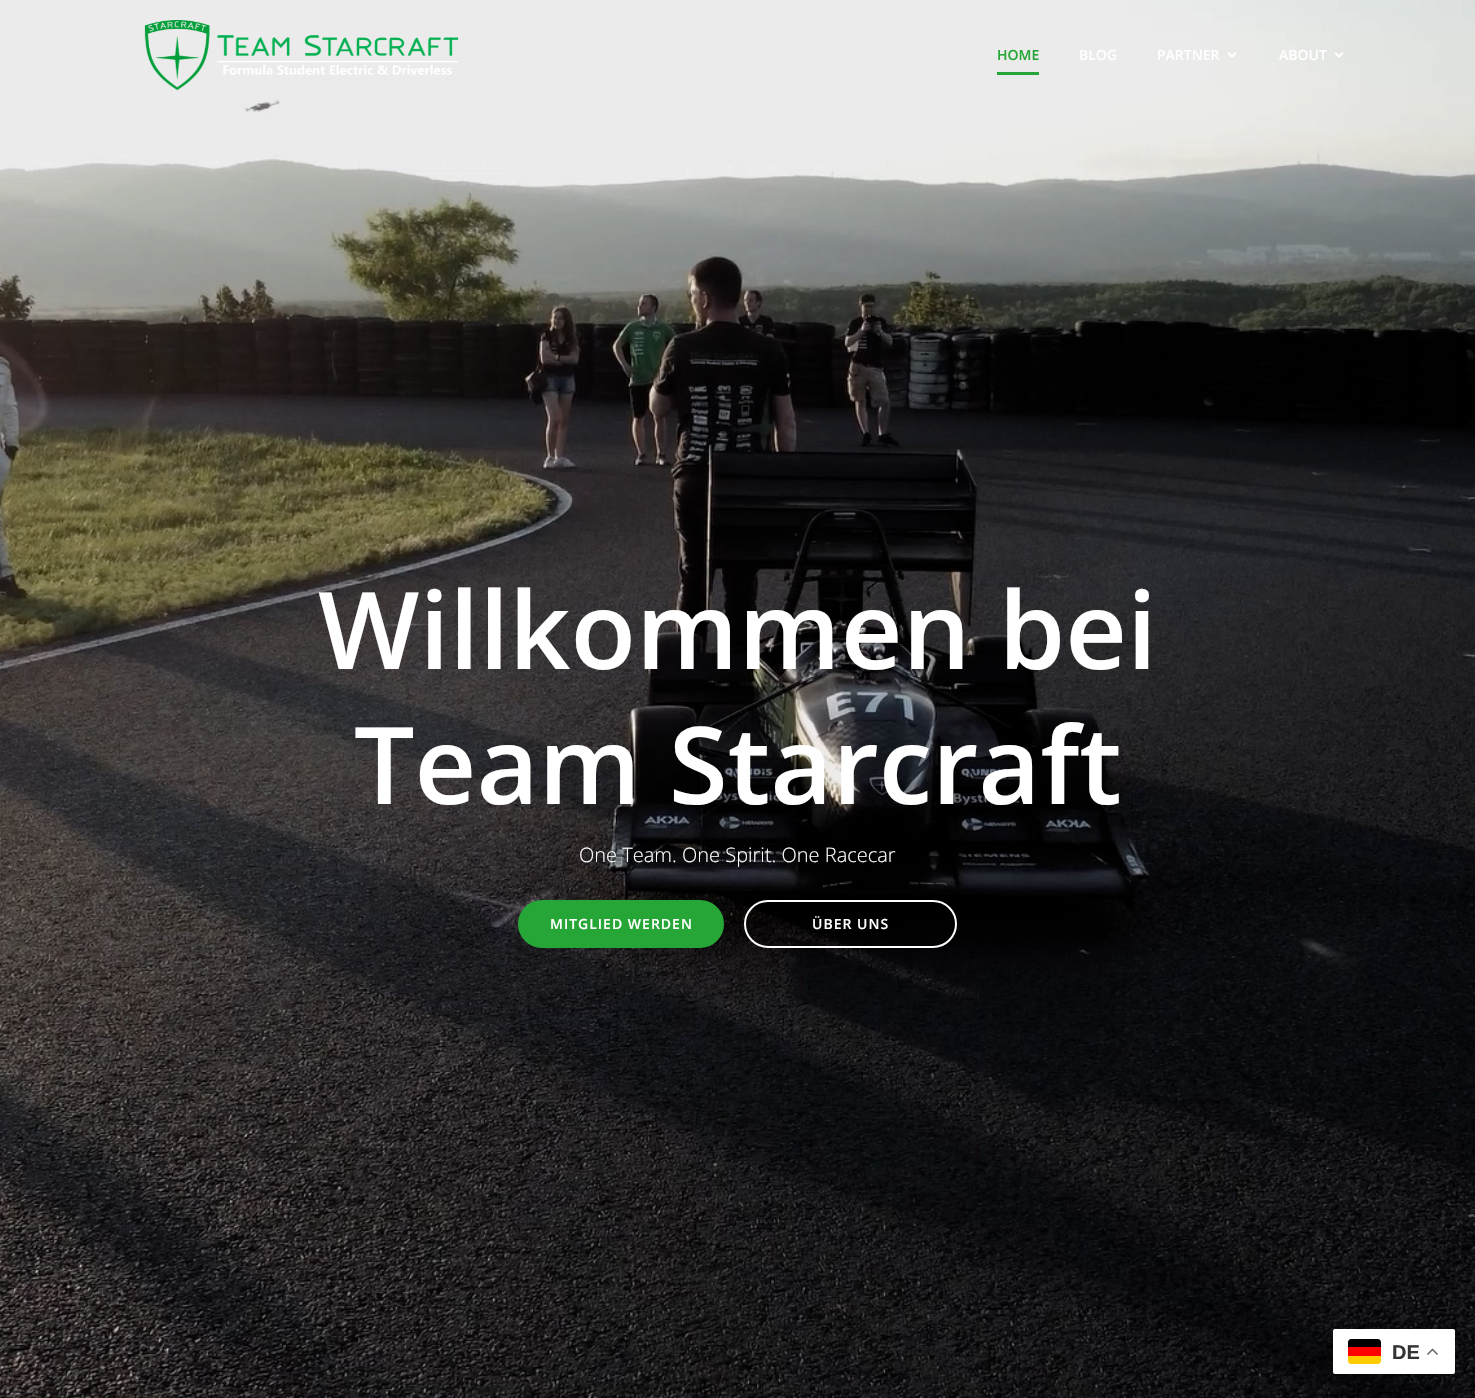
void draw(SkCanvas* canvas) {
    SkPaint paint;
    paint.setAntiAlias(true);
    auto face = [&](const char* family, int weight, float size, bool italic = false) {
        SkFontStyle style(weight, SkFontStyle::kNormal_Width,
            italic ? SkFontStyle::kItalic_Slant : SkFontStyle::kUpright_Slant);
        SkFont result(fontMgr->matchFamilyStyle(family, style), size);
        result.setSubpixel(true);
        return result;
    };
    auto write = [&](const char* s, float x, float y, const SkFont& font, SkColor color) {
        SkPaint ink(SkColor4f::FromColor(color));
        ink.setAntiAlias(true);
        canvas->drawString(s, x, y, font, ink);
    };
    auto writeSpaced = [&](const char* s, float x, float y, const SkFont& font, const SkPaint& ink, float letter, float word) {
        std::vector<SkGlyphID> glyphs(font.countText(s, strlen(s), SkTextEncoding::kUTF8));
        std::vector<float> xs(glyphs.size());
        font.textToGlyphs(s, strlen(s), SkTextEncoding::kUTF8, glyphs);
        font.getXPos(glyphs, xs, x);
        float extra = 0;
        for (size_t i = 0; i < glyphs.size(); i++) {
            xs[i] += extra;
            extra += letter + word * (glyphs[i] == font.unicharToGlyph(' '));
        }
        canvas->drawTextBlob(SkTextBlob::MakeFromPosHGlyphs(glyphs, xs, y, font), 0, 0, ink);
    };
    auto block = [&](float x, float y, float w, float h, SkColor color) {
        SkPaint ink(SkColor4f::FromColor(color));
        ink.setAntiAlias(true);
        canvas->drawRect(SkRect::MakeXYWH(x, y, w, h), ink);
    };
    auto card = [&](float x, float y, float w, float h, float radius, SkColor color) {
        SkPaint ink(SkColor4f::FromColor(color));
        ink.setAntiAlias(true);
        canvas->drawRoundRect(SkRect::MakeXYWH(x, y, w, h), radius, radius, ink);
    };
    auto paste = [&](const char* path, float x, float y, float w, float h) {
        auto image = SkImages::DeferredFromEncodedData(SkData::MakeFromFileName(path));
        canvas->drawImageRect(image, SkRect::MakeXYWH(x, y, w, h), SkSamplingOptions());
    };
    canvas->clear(SK_ColorWHITE);
    paste("pic4.png", 0, 0, 1475, 1398);
    paste("pic1.png", 144, 20, 315, 70);
    auto kFont1 = face("Open Sans", 600, 14);
    write("HOME", 997, 60, kFont1, SkColorSetRGB(38, 166, 55));
    block(997, 72, 42, 3, SkColorSetRGB(38, 166, 55));
    write("BLOG", 1079, 60, kFont1, SK_ColorWHITE);
    write("PARTNER", 1157, 60, kFont1, SK_ColorWHITE);
    paste("pic2.png", 1227, 52, 10, 6);
    write("ABOUT", 1279, 60, kFont1, SK_ColorWHITE);
    paste("pic3.png", 1334, 52, 10, 6);
    auto kFont2 = face("Open Sans", 600, 107.25f);
    write("Willkommen bei", 318, 669, kFont2, SK_ColorWHITE);
    write("Team Starcraft", 354, 804, kFont2, SK_ColorWHITE);
    auto kFont3 = face("Open Sans", 300, 20);
    write("One Team. One Spirit. One Racecar", 579, 862, kFont3, SK_ColorWHITE);
    paint.setColor(SkColorSetRGB(38, 166, 55));
    canvas->drawRoundRect(SkRect::MakeXYWH(519, 901, 204, 46), 23, 23, paint);
    paint.setStyle(SkPaint::kStroke_Style);
    paint.setStrokeWidth(2);
    canvas->drawRoundRect(SkRect::MakeXYWH(519, 901, 204, 46), 23, 23, paint);
    paint.setStyle(SkPaint::kFill_Style);
    paint.setColor(SK_ColorWHITE);
    writeSpaced("MITGLIED WERDEN", 550, 929, kFont1, paint, 1, 0);
    paint.setStyle(SkPaint::kStroke_Style);
    canvas->drawRoundRect(SkRect::MakeXYWH(745, 901, 211, 46), 23, 23, paint);
    paint.setStyle(SkPaint::kFill_Style);
    writeSpaced("ÜBER UNS", 812, 929, kFont1, paint, 1, 0);
    card(1333, 1329, 122, 45, 2, SK_ColorWHITE);
    paint.setColor(SkColorSetRGB(255, 204, 0));
    canvas->drawPath(SkPathBuilder().moveTo(1348, 1356).lineTo(1381, 1356).lineTo(1381, 1361).cubicTo(1381, 1362.5f, 1379.5f, 1364, 1378, 1364).lineTo(1351, 1364).cubicTo(1349.5f, 1364, 1348, 1362.5f, 1348, 1361).close().detach(), paint);
    paint.setColor(SK_ColorBLACK);
    canvas->drawPath(SkPathBuilder().moveTo(1351, 1339).lineTo(1378, 1339).cubicTo(1379.5f, 1339, 1381, 1340.5f, 1381, 1342).lineTo(1381, 1347).lineTo(1348, 1347).lineTo(1348, 1342).cubicTo(1348, 1340.5f, 1349.5f, 1339, 1351, 1339).close().detach(), paint);
    block(1348, 1347, 33, 9, SkColorSetRGB(255, 0, 0));
    auto kFont4 = face("Liberation Sans", 700, 20);
    write("DE", 1392, 1359, kFont4, SkColorSetRGB(51, 51, 51));
    paste("pic5.png", 1427, 1348, 11, 7);
}
